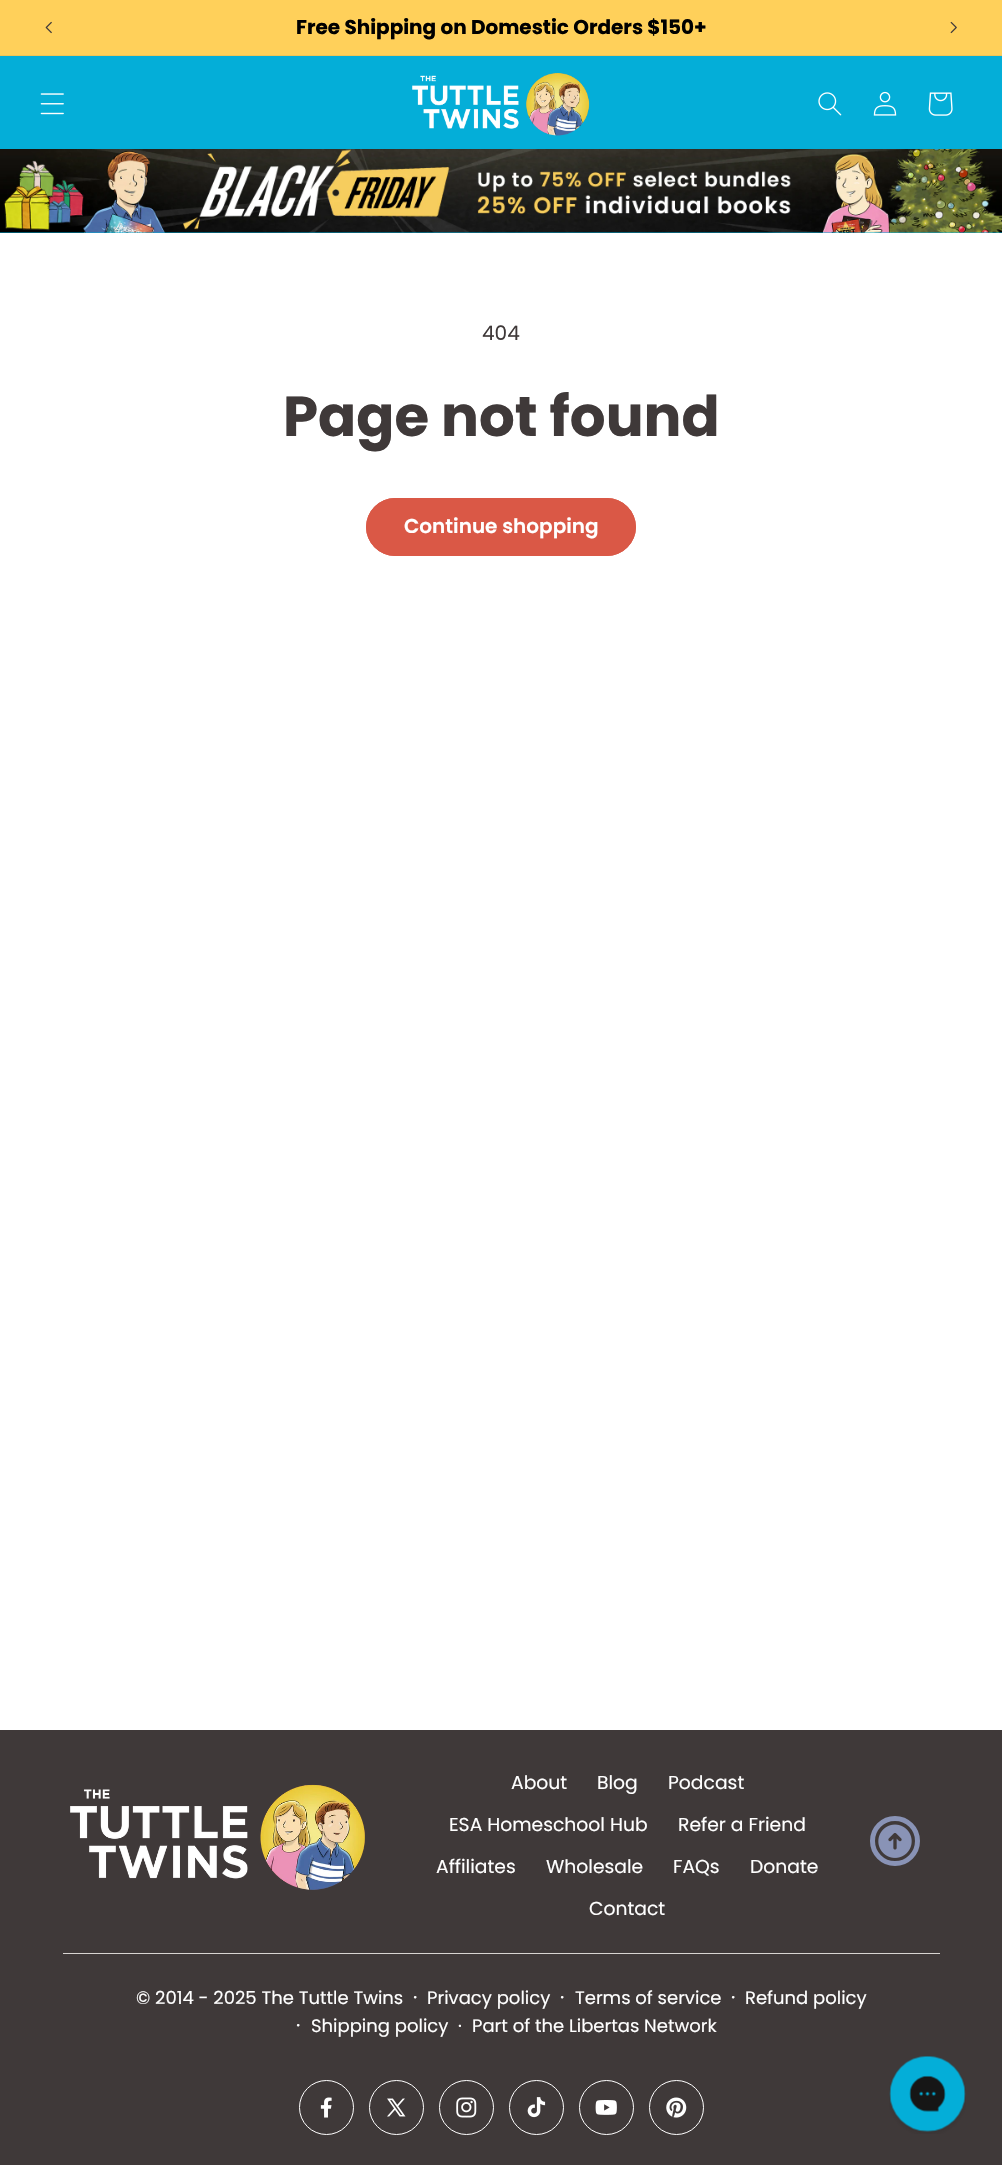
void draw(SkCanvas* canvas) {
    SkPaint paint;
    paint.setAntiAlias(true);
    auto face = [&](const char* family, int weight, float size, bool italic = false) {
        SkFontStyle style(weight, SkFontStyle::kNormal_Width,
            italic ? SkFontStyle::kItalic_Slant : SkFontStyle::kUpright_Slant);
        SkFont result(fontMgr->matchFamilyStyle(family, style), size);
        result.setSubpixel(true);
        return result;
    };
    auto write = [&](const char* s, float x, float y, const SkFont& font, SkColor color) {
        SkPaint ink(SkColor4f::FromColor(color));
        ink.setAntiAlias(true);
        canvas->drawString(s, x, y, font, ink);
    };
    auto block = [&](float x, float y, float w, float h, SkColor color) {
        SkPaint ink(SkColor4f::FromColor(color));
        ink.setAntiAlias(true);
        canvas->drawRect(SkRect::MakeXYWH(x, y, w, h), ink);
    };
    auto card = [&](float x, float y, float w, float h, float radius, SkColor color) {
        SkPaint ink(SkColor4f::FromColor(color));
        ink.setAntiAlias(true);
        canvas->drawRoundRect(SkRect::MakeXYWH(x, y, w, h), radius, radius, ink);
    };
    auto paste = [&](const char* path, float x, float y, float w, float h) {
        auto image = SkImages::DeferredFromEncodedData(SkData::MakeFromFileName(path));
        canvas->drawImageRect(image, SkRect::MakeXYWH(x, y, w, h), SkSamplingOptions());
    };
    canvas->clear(SK_ColorWHITE);
    block(0, 0, 1002, 55, SkColorSetRGB(255, 208, 90));
    block(0, 55, 1002, 1, SkColorSetRGB(240, 196, 87));
    paste("pic1.png", 45, 21, 7, 13);
    auto kFont1 = face("Poppins", 700, 20);
    write("Free Shipping on Domestic Orders $150+", 296, 34, kFont1, SK_ColorBLACK);
    paste("pic2.png", 950, 21, 7, 13);
    block(0, 56, 1002, 93, SkColorSetRGB(4, 174, 216));
    paste("pic3.png", 40, 93, 24, 22);
    paste("pic4.png", 412, 73, 178, 63);
    paste("pic5.png", 818, 92, 24, 24);
    paste("pic6.png", 873, 91, 24, 25);
    paste("pic7.png", 928, 92, 25, 24);
    block(0, 232, 1002, 1, SkColorSetRGB(4, 174, 216));
    paste("pic8.png", 0, 149, 1002, 84);
    auto kFont2 = face("Poppins", 400, 20);
    write("404", 482, 340, kFont2, SkColorSetRGB(63, 57, 57));
    auto kFont3 = face("Poppins", 700, 56.25f);
    write("Page not found", 283, 436, kFont3, SkColorSetRGB(63, 57, 57));
    card(366, 498, 270, 58, 29, SkColorSetRGB(218, 88, 70));
    paint.setStyle(SkPaint::kStroke_Style);
    paint.setStrokeWidth(1);
    paint.setColor(SkColorSetRGB(218, 88, 70));
    canvas->drawRoundRect(SkRect::MakeXYWH(366.5f, 498.5f, 269, 57), 28.5f, 28.5f, paint);
    auto kFont4 = face("Poppins", 600, 20);
    write("Continue shopping", 404, 533, kFont4, SK_ColorWHITE);
    block(0, 1730, 1002, 435, SkColorSetRGB(63, 57, 57));
    paste("pic9.png", 70, 1784, 295, 106);
    auto kFont5 = face("Poppins", 400, 18.75f);
    write("About", 511, 1789, kFont5, SK_ColorWHITE);
    write("Blog", 597, 1789, kFont5, SK_ColorWHITE);
    write("Podcast", 668, 1789, kFont5, SK_ColorWHITE);
    write("ESA Homeschool Hub", 449, 1831, kFont5, SK_ColorWHITE);
    write("Refer a Friend", 678, 1831, kFont5, SK_ColorWHITE);
    write("Affiliates", 436, 1873, kFont5, SK_ColorWHITE);
    write("Wholesale", 546, 1873, kFont5, SK_ColorWHITE);
    write("FAQs", 673, 1873, kFont5, SK_ColorWHITE);
    write("Donate", 750, 1873, kFont5, SK_ColorWHITE);
    write("Contact", 589, 1915, kFont5, SK_ColorWHITE);
    paint.setStrokeWidth(5);
    paint.setColor(SkColorSetRGB(137, 147, 182));
    canvas->drawCircle(895, 1841, 22.5f, paint);
    paste("pic10.png", 878, 1824, 34, 34);
    block(63, 1953, 877, 1, SkColorSetRGB(216, 213, 210));
    auto kFont6 = face("Poppins", 400, 18);
    write("© 2014 - 2025 The Tuttle Twins", 136, 2004, kFont6, SK_ColorWHITE);
    write("·", 413, 2004, kFont2, SK_ColorWHITE);
    write("Privacy policy", 427, 2004, kFont6, SK_ColorWHITE);
    write("·", 560, 2004, kFont2, SK_ColorWHITE);
    write("Terms of service", 575, 2004, kFont6, SK_ColorWHITE);
    write("·", 731, 2004, kFont2, SK_ColorWHITE);
    write("Refund policy", 745, 2004, kFont6, SK_ColorWHITE);
    write("·", 296, 2032, kFont2, SK_ColorWHITE);
    write("Shipping policy", 311, 2032, kFont6, SK_ColorWHITE);
    write("·", 458, 2032, kFont6, SK_ColorWHITE);
    write("Part of the Libertas Network", 472, 2032, kFont6, SK_ColorWHITE);
    paint.setStrokeWidth(1);
    paint.setColor(SK_ColorWHITE);
    canvas->drawCircle(326.5f, 2107.5f, 27, paint);
    paste("pic11.png", 320, 2097, 12, 21);
    canvas->drawCircle(396.5f, 2107.5f, 27, paint);
    paste("pic12.png", 387, 2098, 19, 19);
    canvas->drawCircle(466.5f, 2107.5f, 27, paint);
    paste("pic13.png", 456, 2097, 21, 21);
    canvas->drawCircle(536.5f, 2107.5f, 27, paint);
    paste("pic14.png", 527, 2097, 19, 21);
    canvas->drawCircle(606.5f, 2107.5f, 27, paint);
    paste("pic15.png", 595, 2100, 22, 15);
    canvas->drawCircle(676.5f, 2107.5f, 27, paint);
    paste("pic16.png", 666, 2097, 21, 21);
    paste("pic17.png", 889, 2056, 77, 78);
}
